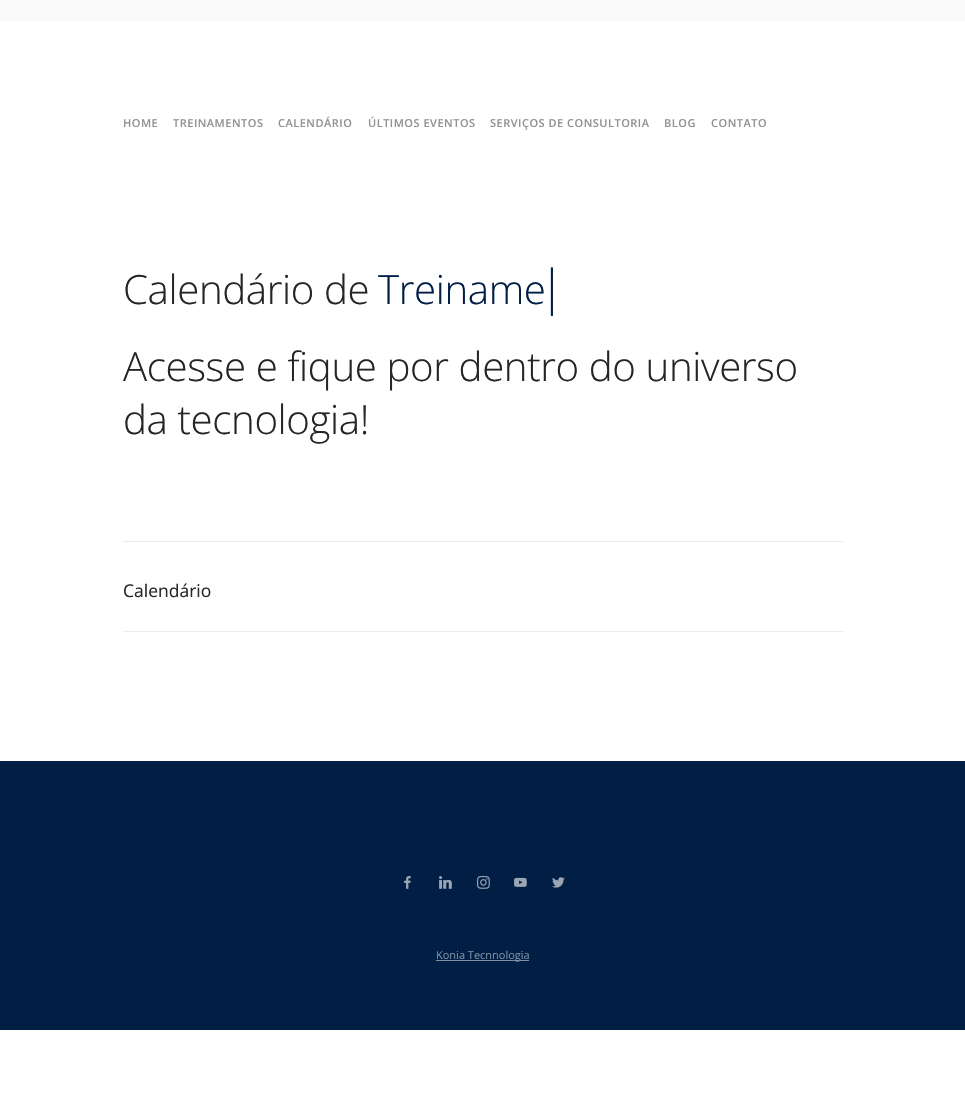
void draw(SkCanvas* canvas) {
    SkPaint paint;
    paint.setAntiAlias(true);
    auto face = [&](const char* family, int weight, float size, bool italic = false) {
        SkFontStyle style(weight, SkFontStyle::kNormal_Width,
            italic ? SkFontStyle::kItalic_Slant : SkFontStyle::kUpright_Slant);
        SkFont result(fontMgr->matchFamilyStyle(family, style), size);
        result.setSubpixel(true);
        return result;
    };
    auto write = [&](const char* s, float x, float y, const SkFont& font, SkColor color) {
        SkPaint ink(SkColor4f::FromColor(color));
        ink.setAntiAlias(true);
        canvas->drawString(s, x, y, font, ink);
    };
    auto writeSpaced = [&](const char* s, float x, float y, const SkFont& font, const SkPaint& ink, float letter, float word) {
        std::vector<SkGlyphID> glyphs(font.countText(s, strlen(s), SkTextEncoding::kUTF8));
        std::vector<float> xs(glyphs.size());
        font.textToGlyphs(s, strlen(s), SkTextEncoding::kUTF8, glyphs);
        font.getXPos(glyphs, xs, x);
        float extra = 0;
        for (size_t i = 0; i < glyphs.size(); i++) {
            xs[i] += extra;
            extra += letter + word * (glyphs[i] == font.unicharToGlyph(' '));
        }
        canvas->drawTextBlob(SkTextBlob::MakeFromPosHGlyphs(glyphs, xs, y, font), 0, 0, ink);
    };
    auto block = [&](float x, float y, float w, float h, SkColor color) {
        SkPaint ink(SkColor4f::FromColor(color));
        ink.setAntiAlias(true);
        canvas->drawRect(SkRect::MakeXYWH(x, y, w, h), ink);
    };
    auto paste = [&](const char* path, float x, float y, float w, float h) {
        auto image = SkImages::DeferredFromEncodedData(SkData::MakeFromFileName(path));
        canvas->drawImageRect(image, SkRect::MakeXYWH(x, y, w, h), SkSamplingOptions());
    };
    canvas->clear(SK_ColorWHITE);
    block(0, 0, 965, 21, SkColorSetRGB(250, 250, 250));
    auto kFont1 = face("Open Sans", 600, 11);
    paint.setColor(SkColorSetRGB(146, 146, 146));
    writeSpaced("HOME", 123, 127, kFont1, paint, 0.5f, 0);
    writeSpaced("TREINAMENTOS", 173, 127, kFont1, paint, 0.5f, 0);
    writeSpaced("CALENDÁRIO", 278, 127, kFont1, paint, 0.5f, 0);
    writeSpaced("ÚLTIMOS EVENTOS", 368, 127, kFont1, paint, 0.5f, 0);
    writeSpaced("SERVIÇOS DE CONSULTORIA", 490, 127, kFont1, paint, 0.5f, 0);
    writeSpaced("BLOG", 664, 127, kFont1, paint, 0.5f, 0);
    writeSpaced("CONTATO", 711, 127, kFont1, paint, 0.5f, 0);
    auto kFont2 = face("Open Sans", 300, 40.25f);
    paint.setColor(SkColorSetRGB(37, 37, 37));
    writeSpaced("Calendário de", 123, 304, kFont2, paint, -0.4f, 0);
    paint.setColor(SkColorSetRGB(1, 31, 69));
    writeSpaced("Treiname", 378, 304, kFont2, paint, -0.4f, 0);
    auto kFont3 = face("Open Sans", 300, 48);
    writeSpaced("|", 539, 304, kFont3, paint, -0.4f, 0);
    paint.setColor(SkColorSetRGB(37, 37, 37));
    writeSpaced("Acesse e fique por dentro do universo", 123, 381, kFont2, paint, -0.4f, 0);
    writeSpaced("da tecnologia!", 123, 434, kFont2, paint, -0.4f, 0);
    block(123, 541, 720, 1, SkColorSetRGB(235, 235, 235));
    auto kFont4 = face("Open Sans", 400, 17.5f);
    write("Calendário", 123, 597, kFont4, SkColorSetRGB(37, 37, 37));
    block(123, 631, 720, 1, SkColorSetRGB(235, 235, 235));
    block(0, 761, 965, 269, SkColorSetRGB(1, 31, 69));
    paste("pic1.png", 404, 876, 7, 13);
    paste("pic2.png", 439, 876, 13, 13);
    paste("pic3.png", 477, 876, 13, 13);
    paste("pic4.png", 514, 877, 13, 10);
    paste("pic5.png", 552, 877, 13, 11);
    block(436, 960, 93, 1, SkColorSetRGB(128, 143, 162));
    auto kFont5 = face("Open Sans", 400, 11);
    write("Konia Tecnnologia", 436, 959, kFont5, SkColorSetRGB(128, 143, 162));
}
